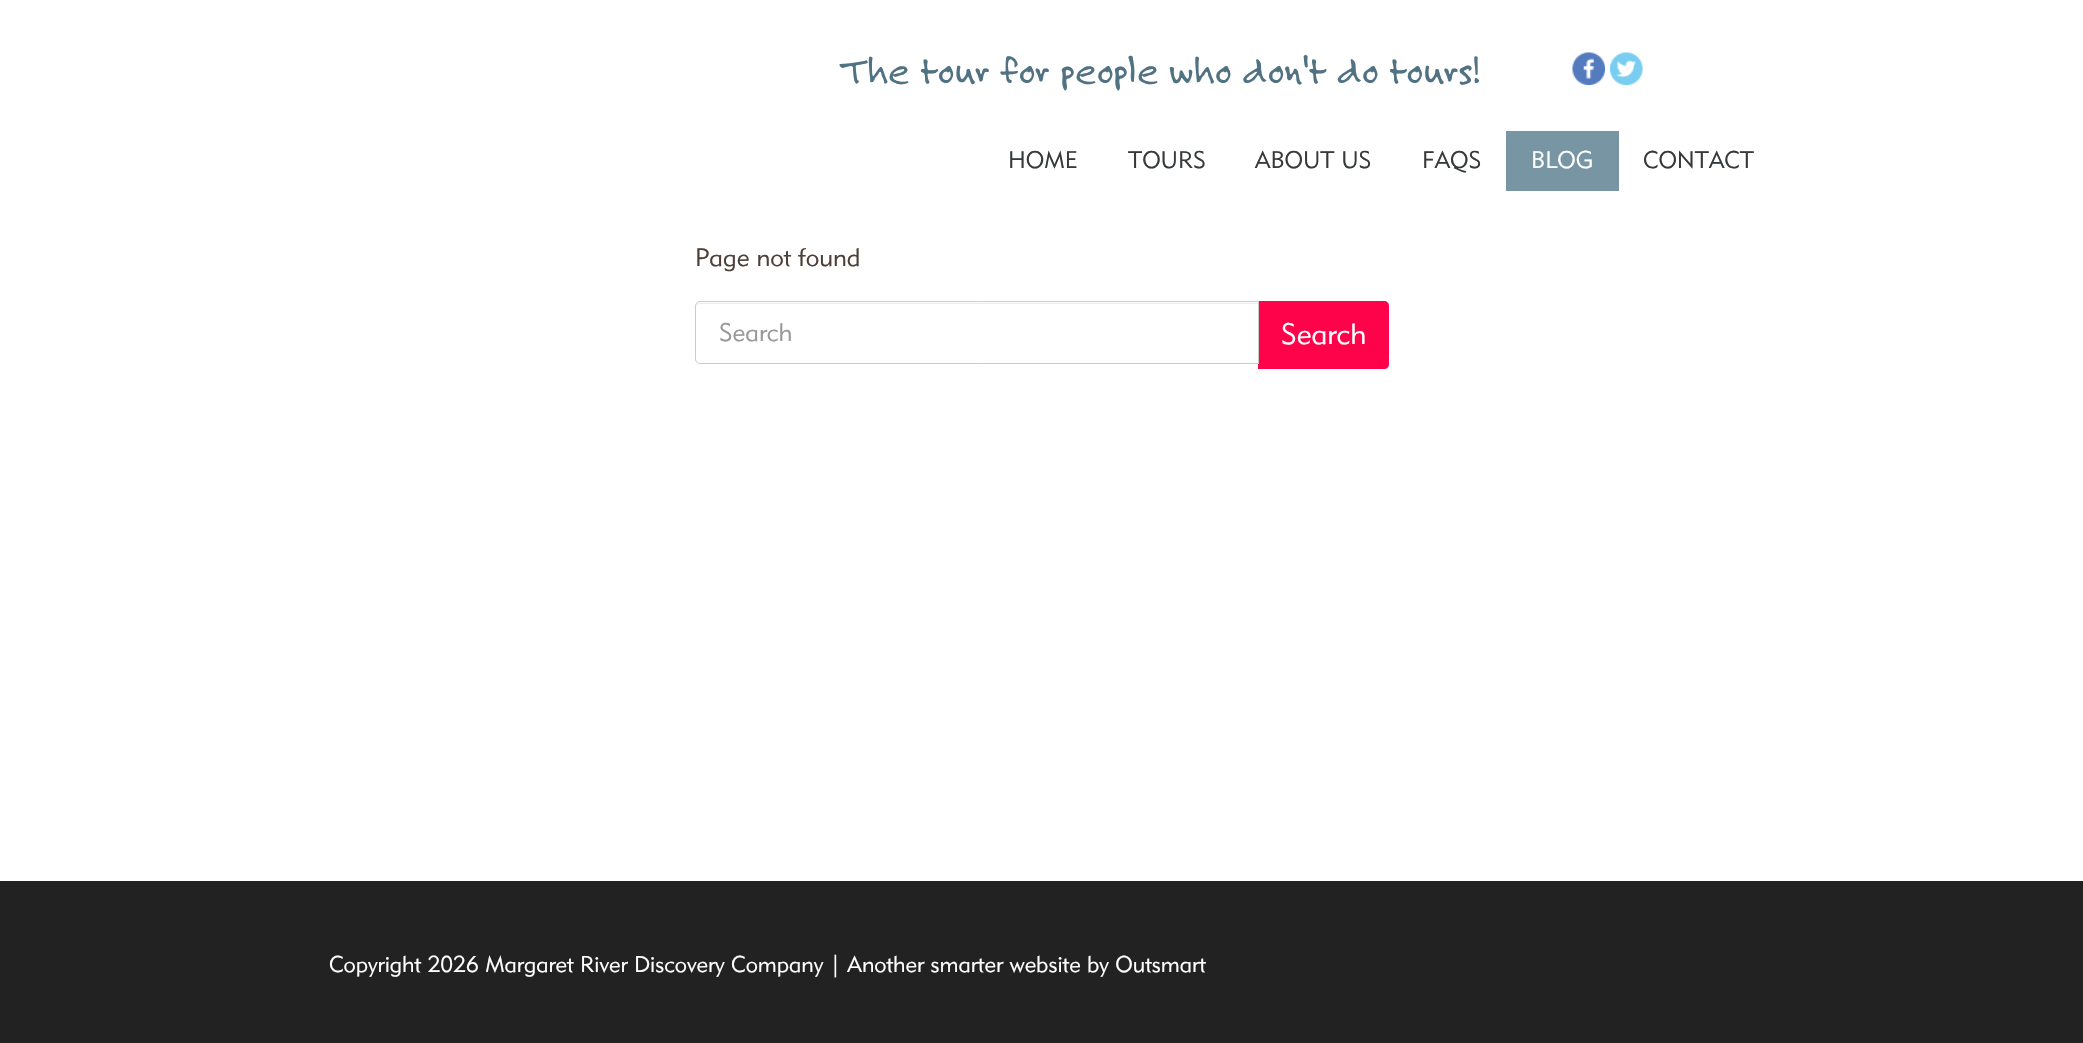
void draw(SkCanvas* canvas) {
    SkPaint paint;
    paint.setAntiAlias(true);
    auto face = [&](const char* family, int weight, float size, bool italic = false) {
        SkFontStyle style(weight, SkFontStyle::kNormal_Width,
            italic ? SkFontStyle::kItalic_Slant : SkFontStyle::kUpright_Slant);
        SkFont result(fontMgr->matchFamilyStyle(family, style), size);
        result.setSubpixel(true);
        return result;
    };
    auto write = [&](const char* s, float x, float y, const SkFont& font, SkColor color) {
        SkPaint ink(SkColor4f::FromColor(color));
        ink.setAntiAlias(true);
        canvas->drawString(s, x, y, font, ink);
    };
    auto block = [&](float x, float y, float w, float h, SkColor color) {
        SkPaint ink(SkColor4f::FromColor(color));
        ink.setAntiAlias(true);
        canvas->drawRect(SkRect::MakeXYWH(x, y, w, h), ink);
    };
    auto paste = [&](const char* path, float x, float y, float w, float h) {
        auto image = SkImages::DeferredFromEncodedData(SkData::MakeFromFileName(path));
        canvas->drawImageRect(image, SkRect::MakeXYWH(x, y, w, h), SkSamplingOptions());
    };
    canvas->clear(SK_ColorWHITE);
    auto kFont1 = face("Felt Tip", 400, 41.25f, true);
    write("The tour for people who don't do tours!", 841, 83, kFont1, SkColorSetRGB(80, 114, 130));
    paste("pic1.png", 1572, 52, 33, 33);
    paste("pic2.png", 1610, 52, 33, 33);
    auto kFont2 = face("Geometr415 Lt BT", 400, 23.75f);
    write("HOME", 1008, 168, kFont2, SkColorSetRGB(55, 58, 60));
    write("TOURS", 1128, 168, kFont2, SkColorSetRGB(55, 58, 60));
    write("ABOUT US", 1255, 168, kFont2, SkColorSetRGB(55, 58, 60));
    write("FAQS", 1422, 168, kFont2, SkColorSetRGB(55, 58, 60));
    block(1506, 131, 113, 60, SkColorSetRGB(120, 149, 164));
    write("BLOG", 1531, 168, kFont2, SK_ColorWHITE);
    write("CONTACT", 1643, 168, kFont2, SkColorSetRGB(55, 58, 60));
    auto kFont3 = face("Geometr415 Lt BT", 400, 25);
    write("Page not found", 695, 266, kFont3, SkColorSetRGB(78, 64, 57));
    paint.setColor(SkColorSetRGB(255, 3, 74));
    canvas->drawPath(SkPathBuilder().moveTo(1258, 301).lineTo(1384, 301).cubicTo(1387, 301, 1389, 303, 1389, 306).lineTo(1389, 364).cubicTo(1389, 367, 1387, 369, 1384, 369).lineTo(1258, 369).close().detach(), paint);
    paint.setColor(SK_ColorWHITE);
    canvas->drawPath(SkPathBuilder().moveTo(700, 301).lineTo(1259, 301).lineTo(1259, 364).lineTo(700, 364).cubicTo(697, 364, 695, 362, 695, 359).lineTo(695, 306).cubicTo(695, 303, 697, 301, 700, 301).close().detach(), paint);
    paint.setColor(SkColorSetRGB(236, 236, 236));
    canvas->drawPath(SkPathBuilder().moveTo(700, 304).lineTo(1258, 304).lineTo(1258, 303).lineTo(700, 303).cubicTo(697, 303, 696, 305, 696, 308).cubicTo(696, 305, 698, 304, 700, 304).close().detach(), paint);
    paint.setStyle(SkPaint::kStroke_Style);
    paint.setStrokeWidth(1);
    paint.setColor(SkColorSetRGB(204, 204, 204));
    canvas->drawPath(SkPathBuilder().moveTo(700, 301.5f).lineTo(1258.5f, 301.5f).lineTo(1258.5f, 363.5f).lineTo(700, 363.5f).cubicTo(697.5f, 363.5f, 695.5f, 361.5f, 695.5f, 359).lineTo(695.5f, 306).cubicTo(695.5f, 303.5f, 697.5f, 301.5f, 700, 301.5f).close().detach(), paint);
    write("Search", 719, 341, kFont3, SkColorSetRGB(153, 153, 153));
    auto kFont4 = face("Geometr415 Lt BT", 400, 29);
    write("Search", 1281, 344, kFont4, SK_ColorWHITE);
    block(0, 881, 2083, 162, SkColorSetRGB(34, 34, 34));
    auto kFont5 = face("Geometr415 Lt BT", 400, 22.5f);
    write("Copyright 2026 Margaret River Discovery Company | Another smarter website by Outsmart", 329, 972, kFont5, SK_ColorWHITE);
}
